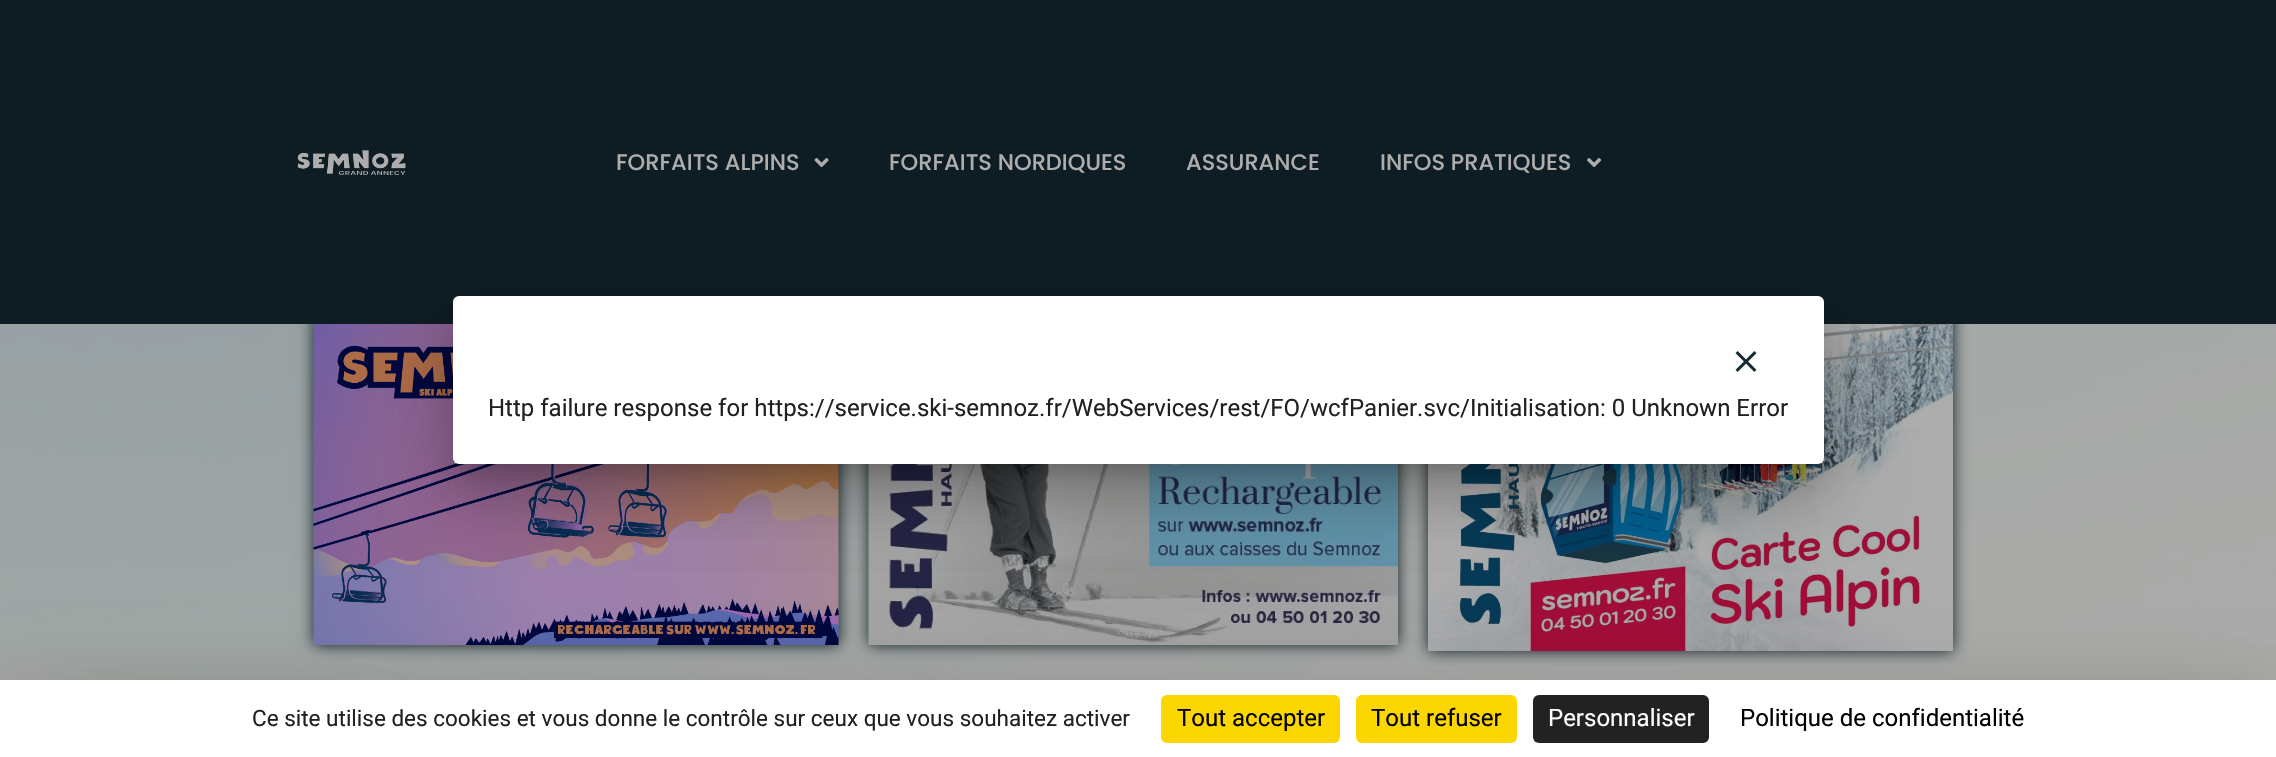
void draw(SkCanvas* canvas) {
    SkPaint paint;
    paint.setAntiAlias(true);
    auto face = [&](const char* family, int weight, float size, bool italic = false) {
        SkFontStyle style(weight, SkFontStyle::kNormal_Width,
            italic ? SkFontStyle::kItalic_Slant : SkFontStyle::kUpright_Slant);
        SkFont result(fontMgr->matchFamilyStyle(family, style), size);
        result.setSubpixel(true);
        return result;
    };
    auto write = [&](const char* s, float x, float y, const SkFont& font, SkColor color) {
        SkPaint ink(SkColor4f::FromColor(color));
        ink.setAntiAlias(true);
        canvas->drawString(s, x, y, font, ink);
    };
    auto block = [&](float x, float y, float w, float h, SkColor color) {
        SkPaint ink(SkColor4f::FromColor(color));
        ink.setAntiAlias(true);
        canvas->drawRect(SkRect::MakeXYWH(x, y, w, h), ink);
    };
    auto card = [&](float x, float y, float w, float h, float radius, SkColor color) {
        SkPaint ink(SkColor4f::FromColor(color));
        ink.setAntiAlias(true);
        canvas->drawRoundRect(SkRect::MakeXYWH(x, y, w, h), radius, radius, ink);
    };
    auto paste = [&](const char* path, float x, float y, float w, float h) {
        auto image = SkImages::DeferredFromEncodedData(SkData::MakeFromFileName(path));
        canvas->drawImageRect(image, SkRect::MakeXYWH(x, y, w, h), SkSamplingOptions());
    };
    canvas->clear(SK_ColorWHITE);
    paste("pic4.png", 0, 324, 2276, 356);
    paint.setColor(SkColorSetRGB(14, 29, 35));
    paint.setMaskFilter(SkMaskFilter::MakeBlur(kNormal_SkBlurStyle, 7.5f));
    canvas->drawRect(SkRect::MakeXYWH(314, 314, 525, 331), paint);
    paint.setMaskFilter(nullptr);
    paint.setMaskFilter(SkMaskFilter::MakeBlur(kNormal_SkBlurStyle, 7.5f));
    canvas->drawRect(SkRect::MakeXYWH(869, 314, 529, 331), paint);
    paint.setMaskFilter(nullptr);
    paint.setMaskFilter(SkMaskFilter::MakeBlur(kNormal_SkBlurStyle, 7.5f));
    canvas->drawRect(SkRect::MakeXYWH(1428, 314, 525, 337), paint);
    paint.setMaskFilter(nullptr);
    block(0, 0, 2276, 324, SkColorSetRGB(14, 29, 35));
    paste("pic1.png", 297, 150, 109, 25);
    auto kFont1 = face("Poppins", 500, 22.5f);
    write("FORFAITS ALPINS", 616, 170, kFont1, SkColorSetRGB(173, 173, 173));
    paste("pic2.png", 814, 158, 15, 10);
    write("FORFAITS NORDIQUES", 889, 170, kFont1, SkColorSetRGB(173, 173, 173));
    write("ASSURANCE", 1186, 170, kFont1, SkColorSetRGB(173, 173, 173));
    write("INFOS PRATIQUES", 1380, 170, kFont1, SkColorSetRGB(173, 173, 173));
    paste("pic3.png", 1587, 158, 15, 10);
    paste("pic5.png", 313, 324, 526, 321);
    paste("pic6.png", 868, 464, 530, 181);
    paste("pic7.png", 1428, 324, 525, 327);
    paint.setColor(SkColorSetARGB(31, 0, 0, 0));
    paint.setMaskFilter(SkMaskFilter::MakeBlur(kNormal_SkBlurStyle, 34.5f));
    canvas->drawRoundRect(SkRect::MakeXYWH(441, 297, 1395, 192), 18, 18, paint);
    paint.setMaskFilter(nullptr);
    paint.setColor(SkColorSetARGB(36, 0, 0, 0));
    paint.setMaskFilter(SkMaskFilter::MakeBlur(kNormal_SkBlurStyle, 28.5f));
    canvas->drawRoundRect(SkRect::MakeXYWH(449, 327, 1380, 177), 11, 11, paint);
    paint.setMaskFilter(nullptr);
    paint.setColor(SkColorSetARGB(51, 0, 0, 0));
    paint.setMaskFilter(SkMaskFilter::MakeBlur(kNormal_SkBlurStyle, 11));
    canvas->drawRect(SkRect::MakeXYWH(464, 323, 1350, 147), paint);
    paint.setMaskFilter(nullptr);
    card(453, 296, 1371, 168, 6, SK_ColorWHITE);
    paste("pic8.png", 1735, 351, 22, 21);
    auto kFont2 = face("Roboto", 400, 24);
    write("Http failure response for https://service.ski-semnoz.fr/WebServices/rest/FO/wcfPanier.svc/Initialisation: 0 Unknown Error", 488, 416, kFont2, SkColorSetRGB(33, 33, 33));
    paint.setColor(SkColorSetARGB(64, 0, 0, 0));
    paint.setMaskFilter(SkMaskFilter::MakeBlur(kNormal_SkBlurStyle, 45));
    canvas->drawRect(SkRect::MakeXYWH(0, 710, 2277, 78), paint);
    paint.setMaskFilter(nullptr);
    block(0, 680, 2276, 77, SK_ColorWHITE);
    auto kFont3 = face("Roboto", 400, 22.5f);
    write("Ce site utilise des cookies et vous donne le contrôle sur ceux que vous souhaitez activer", 252, 726, kFont3, SkColorSetRGB(33, 33, 33));
    card(1161, 695, 179, 48, 6, SkColorSetRGB(251, 214, 0));
    write("Tout accepter", 1177, 726, kFont2, SK_ColorBLACK);
    card(1356, 695, 161, 48, 6, SkColorSetRGB(251, 214, 0));
    write("Tout refuser", 1371, 726, kFont2, SK_ColorBLACK);
    card(1533, 695, 176, 48, 6, SkColorSetRGB(34, 34, 34));
    write("Personnaliser", 1548, 726, kFont2, SK_ColorWHITE);
    write("Politique de confidentialité", 1740, 726, kFont2, SK_ColorBLACK);
}
